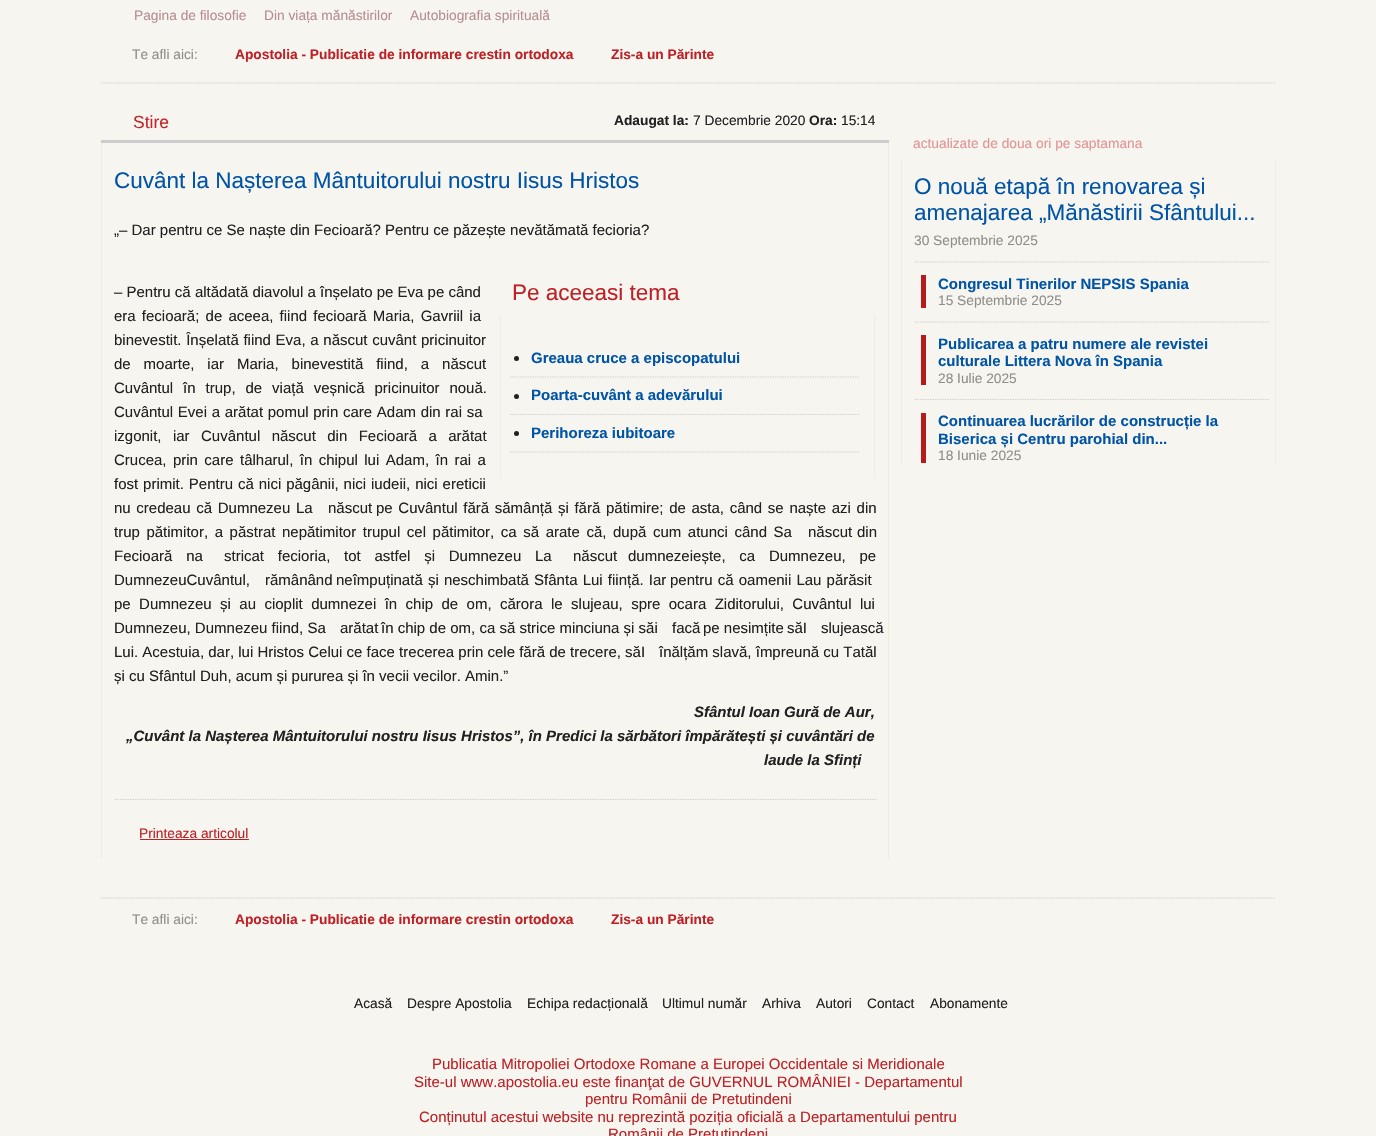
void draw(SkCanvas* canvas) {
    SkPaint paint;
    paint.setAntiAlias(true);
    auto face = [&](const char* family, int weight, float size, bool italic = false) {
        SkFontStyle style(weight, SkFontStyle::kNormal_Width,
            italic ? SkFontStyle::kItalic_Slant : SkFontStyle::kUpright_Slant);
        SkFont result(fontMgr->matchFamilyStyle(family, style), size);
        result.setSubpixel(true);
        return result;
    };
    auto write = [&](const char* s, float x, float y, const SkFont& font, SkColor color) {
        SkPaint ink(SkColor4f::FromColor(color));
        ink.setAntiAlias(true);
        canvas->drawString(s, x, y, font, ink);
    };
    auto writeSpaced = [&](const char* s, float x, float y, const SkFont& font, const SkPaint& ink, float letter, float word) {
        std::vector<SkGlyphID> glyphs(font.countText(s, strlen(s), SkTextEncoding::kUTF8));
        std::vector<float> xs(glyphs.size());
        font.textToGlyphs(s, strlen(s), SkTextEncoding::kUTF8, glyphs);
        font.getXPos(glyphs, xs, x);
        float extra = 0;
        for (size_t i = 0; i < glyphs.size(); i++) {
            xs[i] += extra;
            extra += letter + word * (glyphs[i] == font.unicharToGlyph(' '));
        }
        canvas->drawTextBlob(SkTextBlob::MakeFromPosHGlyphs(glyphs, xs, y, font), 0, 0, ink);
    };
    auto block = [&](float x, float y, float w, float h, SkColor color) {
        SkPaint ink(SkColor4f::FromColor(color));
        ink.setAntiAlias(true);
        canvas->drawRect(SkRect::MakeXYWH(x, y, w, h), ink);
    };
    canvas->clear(SkColorSetRGB(247, 245, 240));
    auto kFont1 = face("Liberation Sans", 400, 13.75f);
    write("Pagina de filosofie", 134, 20, kFont1, SkColorSetRGB(182, 142, 143));
    write("Din viața mănăstirilor", 264, 20, kFont1, SkColorSetRGB(182, 142, 143));
    write("Autobiografia spirituală", 410, 20, kFont1, SkColorSetRGB(182, 142, 143));
    write("Te afli aici:", 132, 59, kFont1, SkColorSetRGB(143, 142, 137));
    auto kFont2 = face("Liberation Sans", 700, 13.75f);
    write("Apostolia - Publicatie de informare crestin ortodoxa", 235, 59, kFont2, SkColorSetRGB(190, 32, 37));
    write("Zis-a un Părinte", 611, 59, kFont2, SkColorSetRGB(190, 32, 37));
    paint.setStyle(SkPaint::kStroke_Style);
    paint.setStrokeWidth(1.2f);
    paint.setColor(SkColorSetRGB(204, 204, 204));
    paint.setPathEffect(SkDashPathEffect::Make({{1.25f, 1.25f}}, 0));
    canvas->drawPath(SkPathBuilder().moveTo(101, 83).lineTo(1276, 83).detach(), paint);
    paint.setPathEffect(nullptr);
    block(101, 140, 788, 3, SkColorSetRGB(204, 204, 204));
    auto kFont3 = face("Liberation Sans", 400, 17.5f);
    write("Stire", 133, 128, kFont3, SkColorSetRGB(196, 37, 42));
    write("Adaugat la:", 614, 125, kFont2, SkColorSetRGB(33, 33, 33));
    write("7 Decembrie 2020", 693, 125, kFont1, SkColorSetRGB(33, 33, 33));
    write("Ora:", 809, 125, kFont2, SkColorSetRGB(33, 33, 33));
    write("15:14", 841, 125, kFont1, SkColorSetRGB(33, 33, 33));
    block(888, 143, 1, 716, SkColorSetRGB(239, 236, 226));
    block(101, 143, 1, 716, SkColorSetRGB(239, 236, 226));
    auto kFont4 = face("Liberation Sans", 400, 22.5f);
    write("Cuvânt la Nașterea Mântuitorului nostru Iisus Hristos", 114, 188, kFont4, SkColorSetRGB(0, 84, 166));
    auto kFont5 = face("Liberation Sans", 400, 15);
    write("„– Dar pentru ce Se naște din Fecioară? Pentru ce păzește nevătămată fecioria?", 114, 235, kFont5, SkColorSetRGB(33, 33, 33));
    write("Pe aceeasi tema", 512, 300, kFont4, SkColorSetRGB(190, 32, 37));
    block(874, 315, 1, 163, SkColorSetRGB(239, 236, 226));
    block(500, 315, 1, 163, SkColorSetRGB(239, 236, 226));
    paint.setStyle(SkPaint::kFill_Style);
    paint.setColor(SkColorSetRGB(33, 33, 33));
    canvas->drawCircle(516.5f, 358.5f, 2.5f, paint);
    auto kFont6 = face("Liberation Sans", 700, 15);
    write("Greaua cruce a episcopatului", 531, 363, kFont6, SkColorSetRGB(0, 84, 166));
    paint.setStyle(SkPaint::kStroke_Style);
    paint.setColor(SkColorSetRGB(204, 204, 204));
    paint.setPathEffect(SkDashPathEffect::Make({{1.25f, 1.25f}}, 0));
    canvas->drawPath(SkPathBuilder().moveTo(510, 377).lineTo(860, 377).detach(), paint);
    paint.setPathEffect(nullptr);
    paint.setStyle(SkPaint::kFill_Style);
    paint.setColor(SkColorSetRGB(33, 33, 33));
    canvas->drawCircle(516.5f, 396.5f, 2.5f, paint);
    write("Poarta-cuvânt a adevărului", 531, 400, kFont6, SkColorSetRGB(0, 84, 166));
    paint.setStyle(SkPaint::kStroke_Style);
    paint.setColor(SkColorSetRGB(204, 204, 204));
    paint.setPathEffect(SkDashPathEffect::Make({{1.25f, 1.25f}}, 0));
    canvas->drawPath(SkPathBuilder().moveTo(510, 414.5f).lineTo(860, 414.5f).detach(), paint);
    paint.setPathEffect(nullptr);
    paint.setStyle(SkPaint::kFill_Style);
    paint.setColor(SkColorSetRGB(33, 33, 33));
    canvas->drawCircle(516.5f, 433.5f, 2.5f, paint);
    write("Perihoreza iubitoare", 531, 438, kFont6, SkColorSetRGB(0, 84, 166));
    paint.setStyle(SkPaint::kStroke_Style);
    paint.setColor(SkColorSetRGB(204, 204, 204));
    paint.setPathEffect(SkDashPathEffect::Make({{1.25f, 1.25f}}, 0));
    canvas->drawPath(SkPathBuilder().moveTo(510, 452).lineTo(860, 452).detach(), paint);
    paint.setPathEffect(nullptr);
    write("– Pentru că altădată diavolul a înșelat‑o pe Eva pe când", 114, 297, kFont5, SkColorSetRGB(33, 33, 33));
    paint.setStyle(SkPaint::kFill_Style);
    paint.setColor(SkColorSetRGB(33, 33, 33));
    writeSpaced("era fecioară; de aceea, fiind fecioară Maria, Gavriil i‑a", 114, 321, kFont5, paint, 0, 2);
    writeSpaced("binevestit. Înșelată fiind Eva, a născut cuvânt pricinuitor", 114, 345, kFont5, paint, 0, 0.5f);
    writeSpaced("de moarte, iar Maria, binevestită fiind, a născut", 114, 369, kFont5, paint, 0, 8.75f);
    writeSpaced("Cuvântul în trup, de viață veșnică pricinuitor nouă.", 114, 393, kFont5, paint, 0, 5.75f);
    writeSpaced("Cuvântul Evei a arătat pomul prin care Adam din rai s‑a", 114, 417, kFont5, paint, 0, 0.5f);
    writeSpaced("izgonit, iar Cuvântul născut din Fecioară a arătat", 114, 441, kFont5, paint, 0, 7.25f);
    writeSpaced("Crucea, prin care tâlharul, în chipul lui Adam, în rai a", 114, 465, kFont5, paint, 0, 2.25f);
    writeSpaced("fost primit. Pentru că nici păgânii, nici iudeii, nici ereticii", 114, 489, kFont5, paint, 0, 0.75f);
    writeSpaced("nu credeau că Dumnezeu L‑a", 114, 513, kFont5, paint, 0, 1.5f);
    writeSpaced("născut", 328, 513, kFont5, paint, 0, 1.5f);
    writeSpaced("pe Cuvântul fără sămânță și fără pătimire; de asta, când se naște azi din", 376, 513, kFont5, paint, 0, 1.5f);
    writeSpaced("trup pătimitor, a păstrat nepătimitor trupul cel pătimitor, ca să arate că, după cum atunci când S‑a", 114, 537, kFont5, paint, 0, 2.4f);
    writeSpaced("născut", 808, 537, kFont5, paint, 0, 2.4f);
    writeSpaced("din", 857, 537, kFont5, paint, 0, 2.4f);
    writeSpaced("Fecioară n‑a", 114, 561, kFont5, paint, 0, 9.6f);
    writeSpaced("stricat fecioria, tot astfel și Dumnezeu L‑a", 224, 561, kFont5, paint, 0, 9.6f);
    writeSpaced("născut", 573, 561, kFont5, paint, 0, 9.6f);
    writeSpaced("dumnezeiește, ca Dumnezeu, pe", 628, 561, kFont5, paint, 0, 9.6f);
    writeSpaced("Dumnezeu‑Cuvântul,", 114, 585, kFont5, paint, 0, 1);
    writeSpaced("rămânând", 265, 585, kFont5, paint, 0, 1);
    writeSpaced("neîmpuținată și neschimbată Sfânta Lui ființă. Iar", 336, 585, kFont5, paint, 0, 1);
    writeSpaced("pentru că oamenii L‑au părăsit", 670, 585, kFont5, paint, 0, 1);
    writeSpaced("pe Dumnezeu și au cioplit dumnezei în chip de om, cărora le slujeau, spre ocara Ziditorului, Cuvântul lui", 114, 609, kFont5, paint, 0, 4.25f);
    write("Dumnezeu, Dumnezeu fiind, S‑a", 114, 633, kFont5, SkColorSetRGB(33, 33, 33));
    write("arătat", 340, 633, kFont5, SkColorSetRGB(33, 33, 33));
    write("în chip de om, ca să strice minciuna și să‑i", 381, 633, kFont5, SkColorSetRGB(33, 33, 33));
    write("facă", 672, 633, kFont5, SkColorSetRGB(33, 33, 33));
    write("pe nesimțite", 703, 633, kFont5, SkColorSetRGB(33, 33, 33));
    write("să‑I", 787, 633, kFont5, SkColorSetRGB(33, 33, 33));
    write("slujească", 821, 633, kFont5, SkColorSetRGB(33, 33, 33));
    write("Lui. Acestuia, dar, lui Hristos Celui ce face trecerea prin cele fără de trecere, să‑I", 114, 657, kFont5, SkColorSetRGB(33, 33, 33));
    write("înălțăm slavă, împreună cu Tatăl", 659, 657, kFont5, SkColorSetRGB(33, 33, 33));
    write("și cu Sfântul Duh, acum și pururea și în vecii vecilor. Amin.”", 114, 681, kFont5, SkColorSetRGB(33, 33, 33));
    auto kFont7 = face("Liberation Sans", 700, 15, true);
    write("Sfântul Ioan Gură de Aur,", 694, 717, kFont7, SkColorSetRGB(33, 33, 33));
    write("„Cuvânt la Nașterea Mântuitorului nostru Iisus Hristos”, în Predici la sărbători împărătești și cuvântări de", 126, 741, kFont7, SkColorSetRGB(33, 33, 33));
    write("laude la Sfinți", 764, 765, kFont7, SkColorSetRGB(33, 33, 33));
    paint.setStyle(SkPaint::kStroke_Style);
    paint.setColor(SkColorSetRGB(204, 204, 204));
    paint.setPathEffect(SkDashPathEffect::Make({{1.25f, 1.25f}}, 0));
    canvas->drawPath(SkPathBuilder().moveTo(115, 799.5f).lineTo(877.5f, 799.5f).detach(), paint);
    paint.setPathEffect(nullptr);
    write("Printeaza articolul", 139, 838, kFont1, SkColorSetRGB(190, 32, 37));
    block(140, 839, 109, 1, SkColorSetRGB(190, 32, 37));
    write("actualizate de doua ori pe saptamana", 913, 148, kFont1, SkColorSetRGB(226, 147, 149));
    block(1275, 161, 1, 302, SkColorSetRGB(239, 236, 226));
    block(901, 161, 1, 302, SkColorSetRGB(239, 236, 226));
    write("O nouă etapă în renovarea și", 914, 194, kFont4, SkColorSetRGB(0, 84, 166));
    write("amenajarea „Mănăstirii Sfântului...", 914, 220, kFont4, SkColorSetRGB(0, 84, 166));
    write("30 Septembrie 2025", 914, 245, kFont1, SkColorSetRGB(143, 142, 137));
    paint.setPathEffect(SkDashPathEffect::Make({{1.25f, 1.25f}}, 0));
    canvas->drawPath(SkPathBuilder().moveTo(915, 262).lineTo(1270, 262).detach(), paint);
    paint.setPathEffect(nullptr);
    block(921, 275, 5, 33, SkColorSetRGB(181, 28, 30));
    write("Congresul Tinerilor NEPSIS Spania", 938, 289, kFont6, SkColorSetRGB(0, 84, 166));
    write("15 Septembrie 2025", 938, 305, kFont1, SkColorSetRGB(143, 142, 137));
    paint.setPathEffect(SkDashPathEffect::Make({{1.25f, 1.25f}}, 0));
    canvas->drawPath(SkPathBuilder().moveTo(915, 322).lineTo(1270, 322).detach(), paint);
    paint.setPathEffect(nullptr);
    block(921, 335, 5, 50, SkColorSetRGB(181, 28, 30));
    write("Publicarea a patru numere ale revistei", 938, 349, kFont6, SkColorSetRGB(0, 84, 166));
    write("culturale Littera Nova în Spania", 938, 366, kFont6, SkColorSetRGB(0, 84, 166));
    write("28 Iulie 2025", 938, 383, kFont1, SkColorSetRGB(143, 142, 137));
    paint.setPathEffect(SkDashPathEffect::Make({{1.25f, 1.25f}}, 0));
    canvas->drawPath(SkPathBuilder().moveTo(915, 399.5f).lineTo(1270, 399.5f).detach(), paint);
    paint.setPathEffect(nullptr);
    block(921, 413, 5, 50, SkColorSetRGB(181, 28, 30));
    write("Continuarea lucrărilor de construcție la", 938, 426, kFont6, SkColorSetRGB(0, 84, 166));
    write("Biserica și Centru parohial din...", 938, 444, kFont6, SkColorSetRGB(0, 84, 166));
    write("18 Iunie 2025", 938, 460, kFont1, SkColorSetRGB(143, 142, 137));
    paint.setPathEffect(SkDashPathEffect::Make({{1.25f, 1.25f}}, 0));
    canvas->drawPath(SkPathBuilder().moveTo(101, 898).lineTo(1276, 898).detach(), paint);
    paint.setPathEffect(nullptr);
    write("Te afli aici:", 132, 924, kFont1, SkColorSetRGB(143, 142, 137));
    write("Apostolia - Publicatie de informare crestin ortodoxa", 235, 924, kFont2, SkColorSetRGB(190, 32, 37));
    write("Zis-a un Părinte", 611, 924, kFont2, SkColorSetRGB(190, 32, 37));
    write("Acasă", 354, 1008, kFont1, SkColorSetRGB(33, 33, 33));
    write("Despre Apostolia", 407, 1008, kFont1, SkColorSetRGB(33, 33, 33));
    write("Echipa redacțională", 527, 1008, kFont1, SkColorSetRGB(33, 33, 33));
    write("Ultimul număr", 662, 1008, kFont1, SkColorSetRGB(33, 33, 33));
    write("Arhiva", 762, 1008, kFont1, SkColorSetRGB(33, 33, 33));
    write("Autori", 816, 1008, kFont1, SkColorSetRGB(33, 33, 33));
    write("Contact", 867, 1008, kFont1, SkColorSetRGB(33, 33, 33));
    write("Abonamente", 930, 1008, kFont1, SkColorSetRGB(33, 33, 33));
    write("Publicatia Mitropoliei Ortodoxe Romane a Europei Occidentale si Meridionale", 432, 1069, kFont5, SkColorSetRGB(190, 32, 37));
    write("Site-ul www.apostolia.eu este finanţat de GUVERNUL ROMÂNIEI - Departamentul", 414, 1087, kFont5, SkColorSetRGB(190, 32, 37));
    write("pentru Românii de Pretutindeni", 585, 1104, kFont5, SkColorSetRGB(190, 32, 37));
    write("Conținutul acestui website nu reprezintă poziția oficială a Departamentului pentru", 419, 1122, kFont5, SkColorSetRGB(190, 32, 37));
    write("Românii de Pretutindeni", 608, 1139, kFont5, SkColorSetRGB(190, 32, 37));
}
